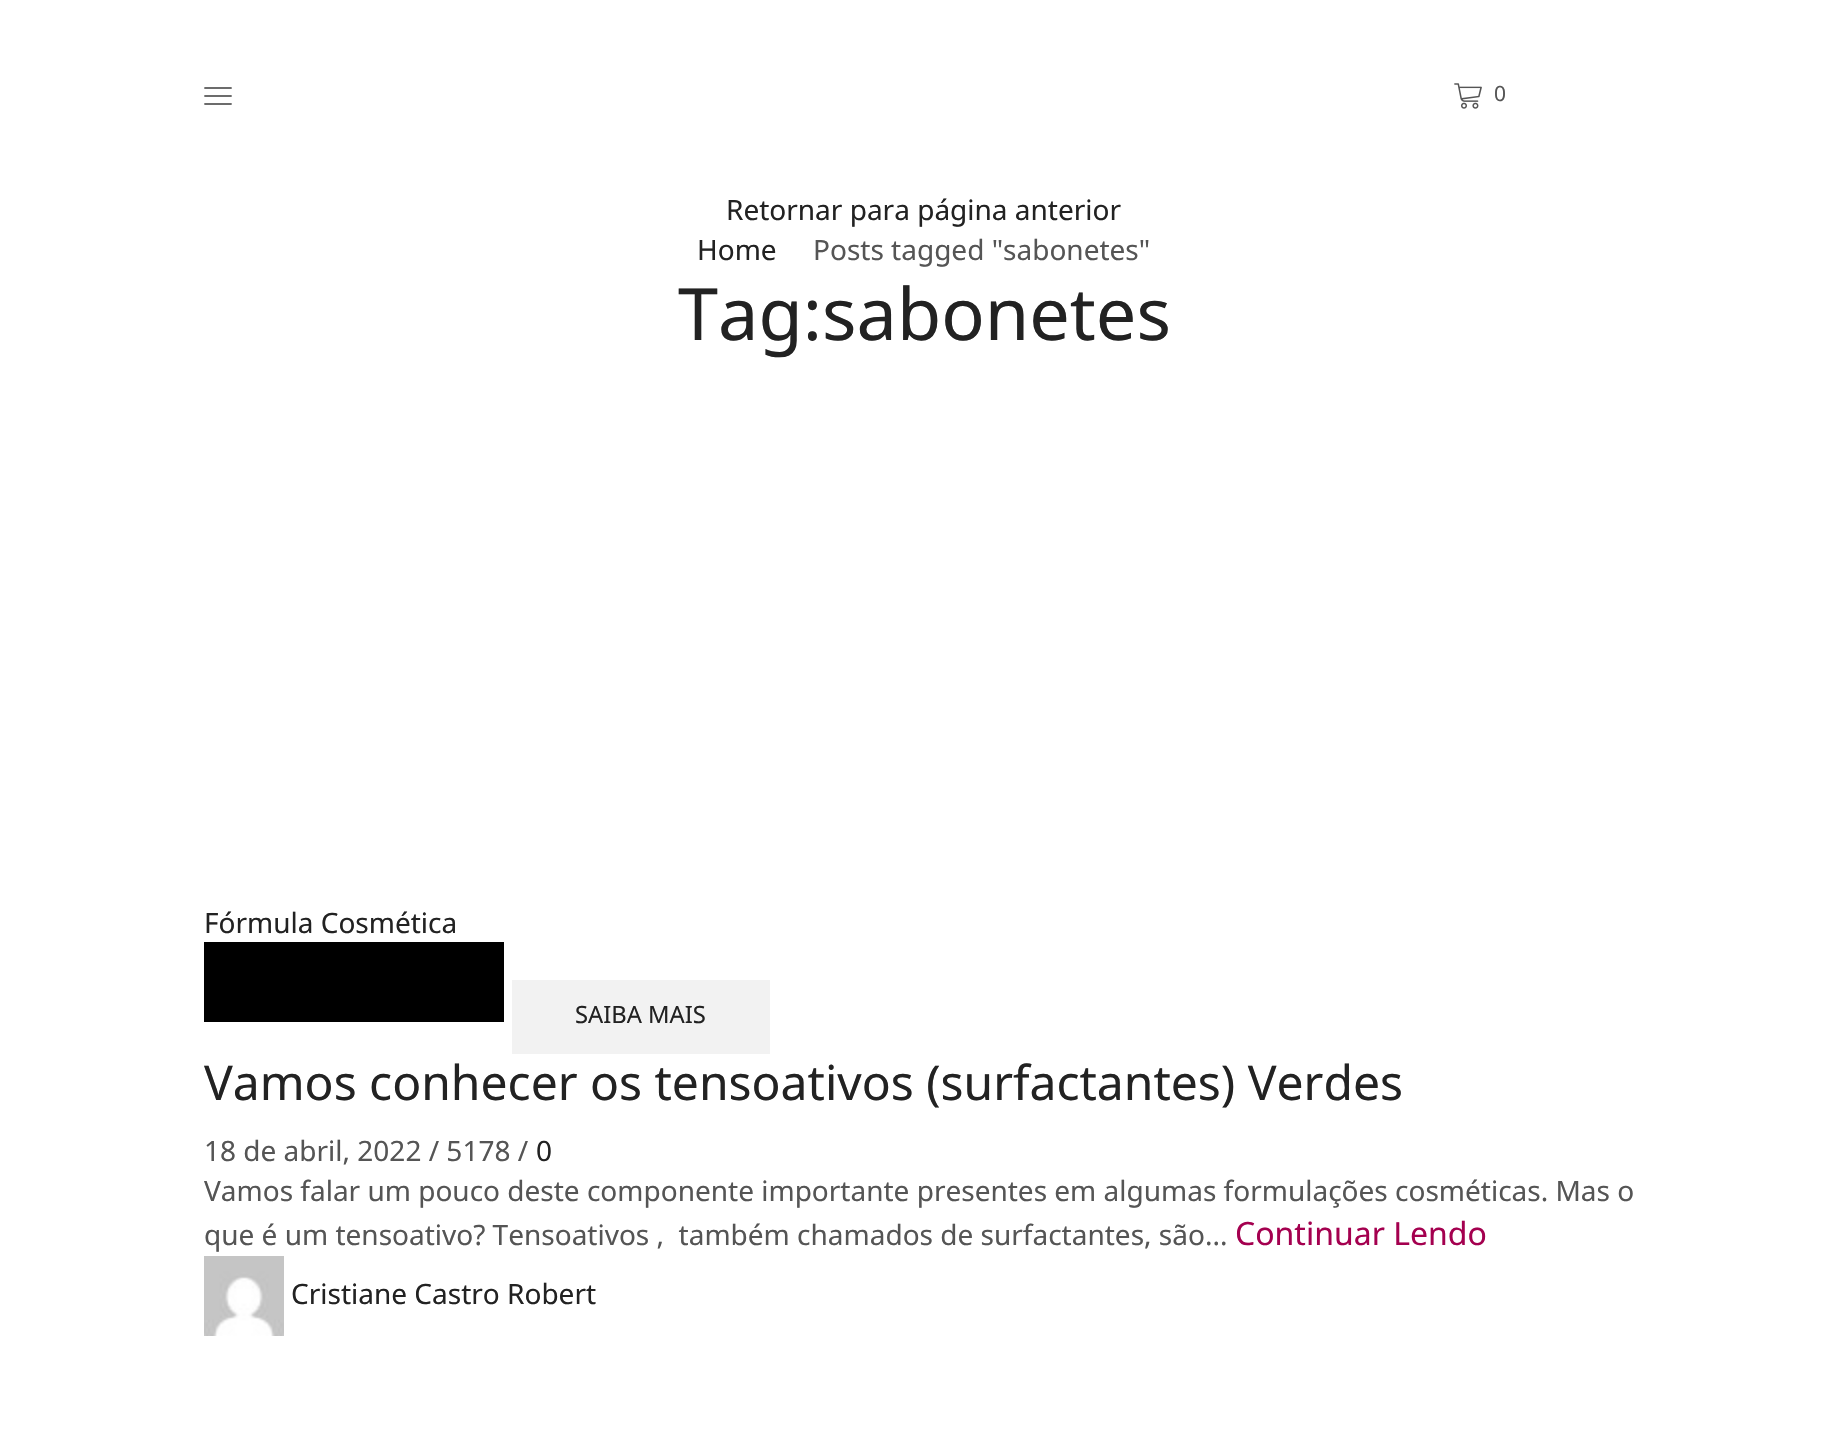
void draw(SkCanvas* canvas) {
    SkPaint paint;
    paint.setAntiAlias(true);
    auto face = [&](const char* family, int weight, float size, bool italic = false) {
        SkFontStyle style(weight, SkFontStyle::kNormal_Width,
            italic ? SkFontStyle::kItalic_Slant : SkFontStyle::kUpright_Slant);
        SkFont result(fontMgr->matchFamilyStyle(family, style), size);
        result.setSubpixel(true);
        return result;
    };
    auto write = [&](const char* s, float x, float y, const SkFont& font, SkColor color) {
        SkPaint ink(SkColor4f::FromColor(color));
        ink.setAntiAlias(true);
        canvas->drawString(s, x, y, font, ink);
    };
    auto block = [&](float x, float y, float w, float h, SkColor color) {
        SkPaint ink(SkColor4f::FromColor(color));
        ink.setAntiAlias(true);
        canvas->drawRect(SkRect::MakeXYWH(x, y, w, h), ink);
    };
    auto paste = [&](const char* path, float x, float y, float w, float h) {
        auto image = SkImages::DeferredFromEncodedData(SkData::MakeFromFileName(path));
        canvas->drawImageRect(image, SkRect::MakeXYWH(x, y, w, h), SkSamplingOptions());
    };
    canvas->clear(SK_ColorWHITE);
    paste("pic1.png", 204, 87, 28, 18);
    paste("pic2.png", 1454, 83, 28, 26);
    auto kFont1 = face("Noto Sans", 400, 21);
    write("0", 1494, 101, kFont1, SkColorSetRGB(85, 85, 85));
    auto kFont2 = face("Noto Sans", 400, 28);
    write("Retornar para página anterior", 726, 220, kFont2, SkColorSetRGB(34, 34, 34));
    write("Home", 697, 260, kFont2, SkColorSetRGB(34, 34, 34));
    write("Posts tagged \"sabonetes\"", 813, 260, kFont2, SkColorSetRGB(85, 85, 85));
    auto kFont3 = face("Noto Sans", 400, 72);
    write("Tag:sabonetes", 678, 340, kFont3, SkColorSetRGB(34, 34, 34));
    write("Fórmula Cosmética", 204, 933, kFont2, SkColorSetRGB(34, 34, 34));
    block(204, 942, 300, 80, SK_ColorBLACK);
    block(512, 980, 258, 74, SkColorSetRGB(242, 242, 242));
    auto kFont4 = face("Noto Sans", 400, 23.75f);
    write("SAIBA MAIS", 575, 1023, kFont4, SkColorSetRGB(34, 34, 34));
    auto kFont5 = face("Noto Sans", 400, 48);
    write("Vamos conhecer os tensoativos (surfactantes) Verdes", 204, 1100, kFont5, SkColorSetRGB(34, 34, 34));
    write("18 de abril, 2022 / 5178 /", 204, 1161, kFont2, SkColorSetRGB(85, 85, 85));
    write("0", 536, 1161, kFont2, SkColorSetRGB(34, 34, 34));
    write("Vamos falar um pouco deste componente importante presentes em algumas formulações cosméticas. Mas o", 204, 1201, kFont2, SkColorSetRGB(85, 85, 85));
    write("que é um tensoativo? Tensoativos ,  também chamados de surfactantes, são...", 204, 1245, kFont2, SkColorSetRGB(85, 85, 85));
    auto kFont6 = face("Noto Sans", 400, 32);
    write("Continuar Lendo", 1235, 1245, kFont6, SkColorSetRGB(164, 0, 79));
    paste("pic3.png", 204, 1256, 80, 80);
    write("Cristiane Castro Robert", 291, 1304, kFont2, SkColorSetRGB(34, 34, 34));
}
